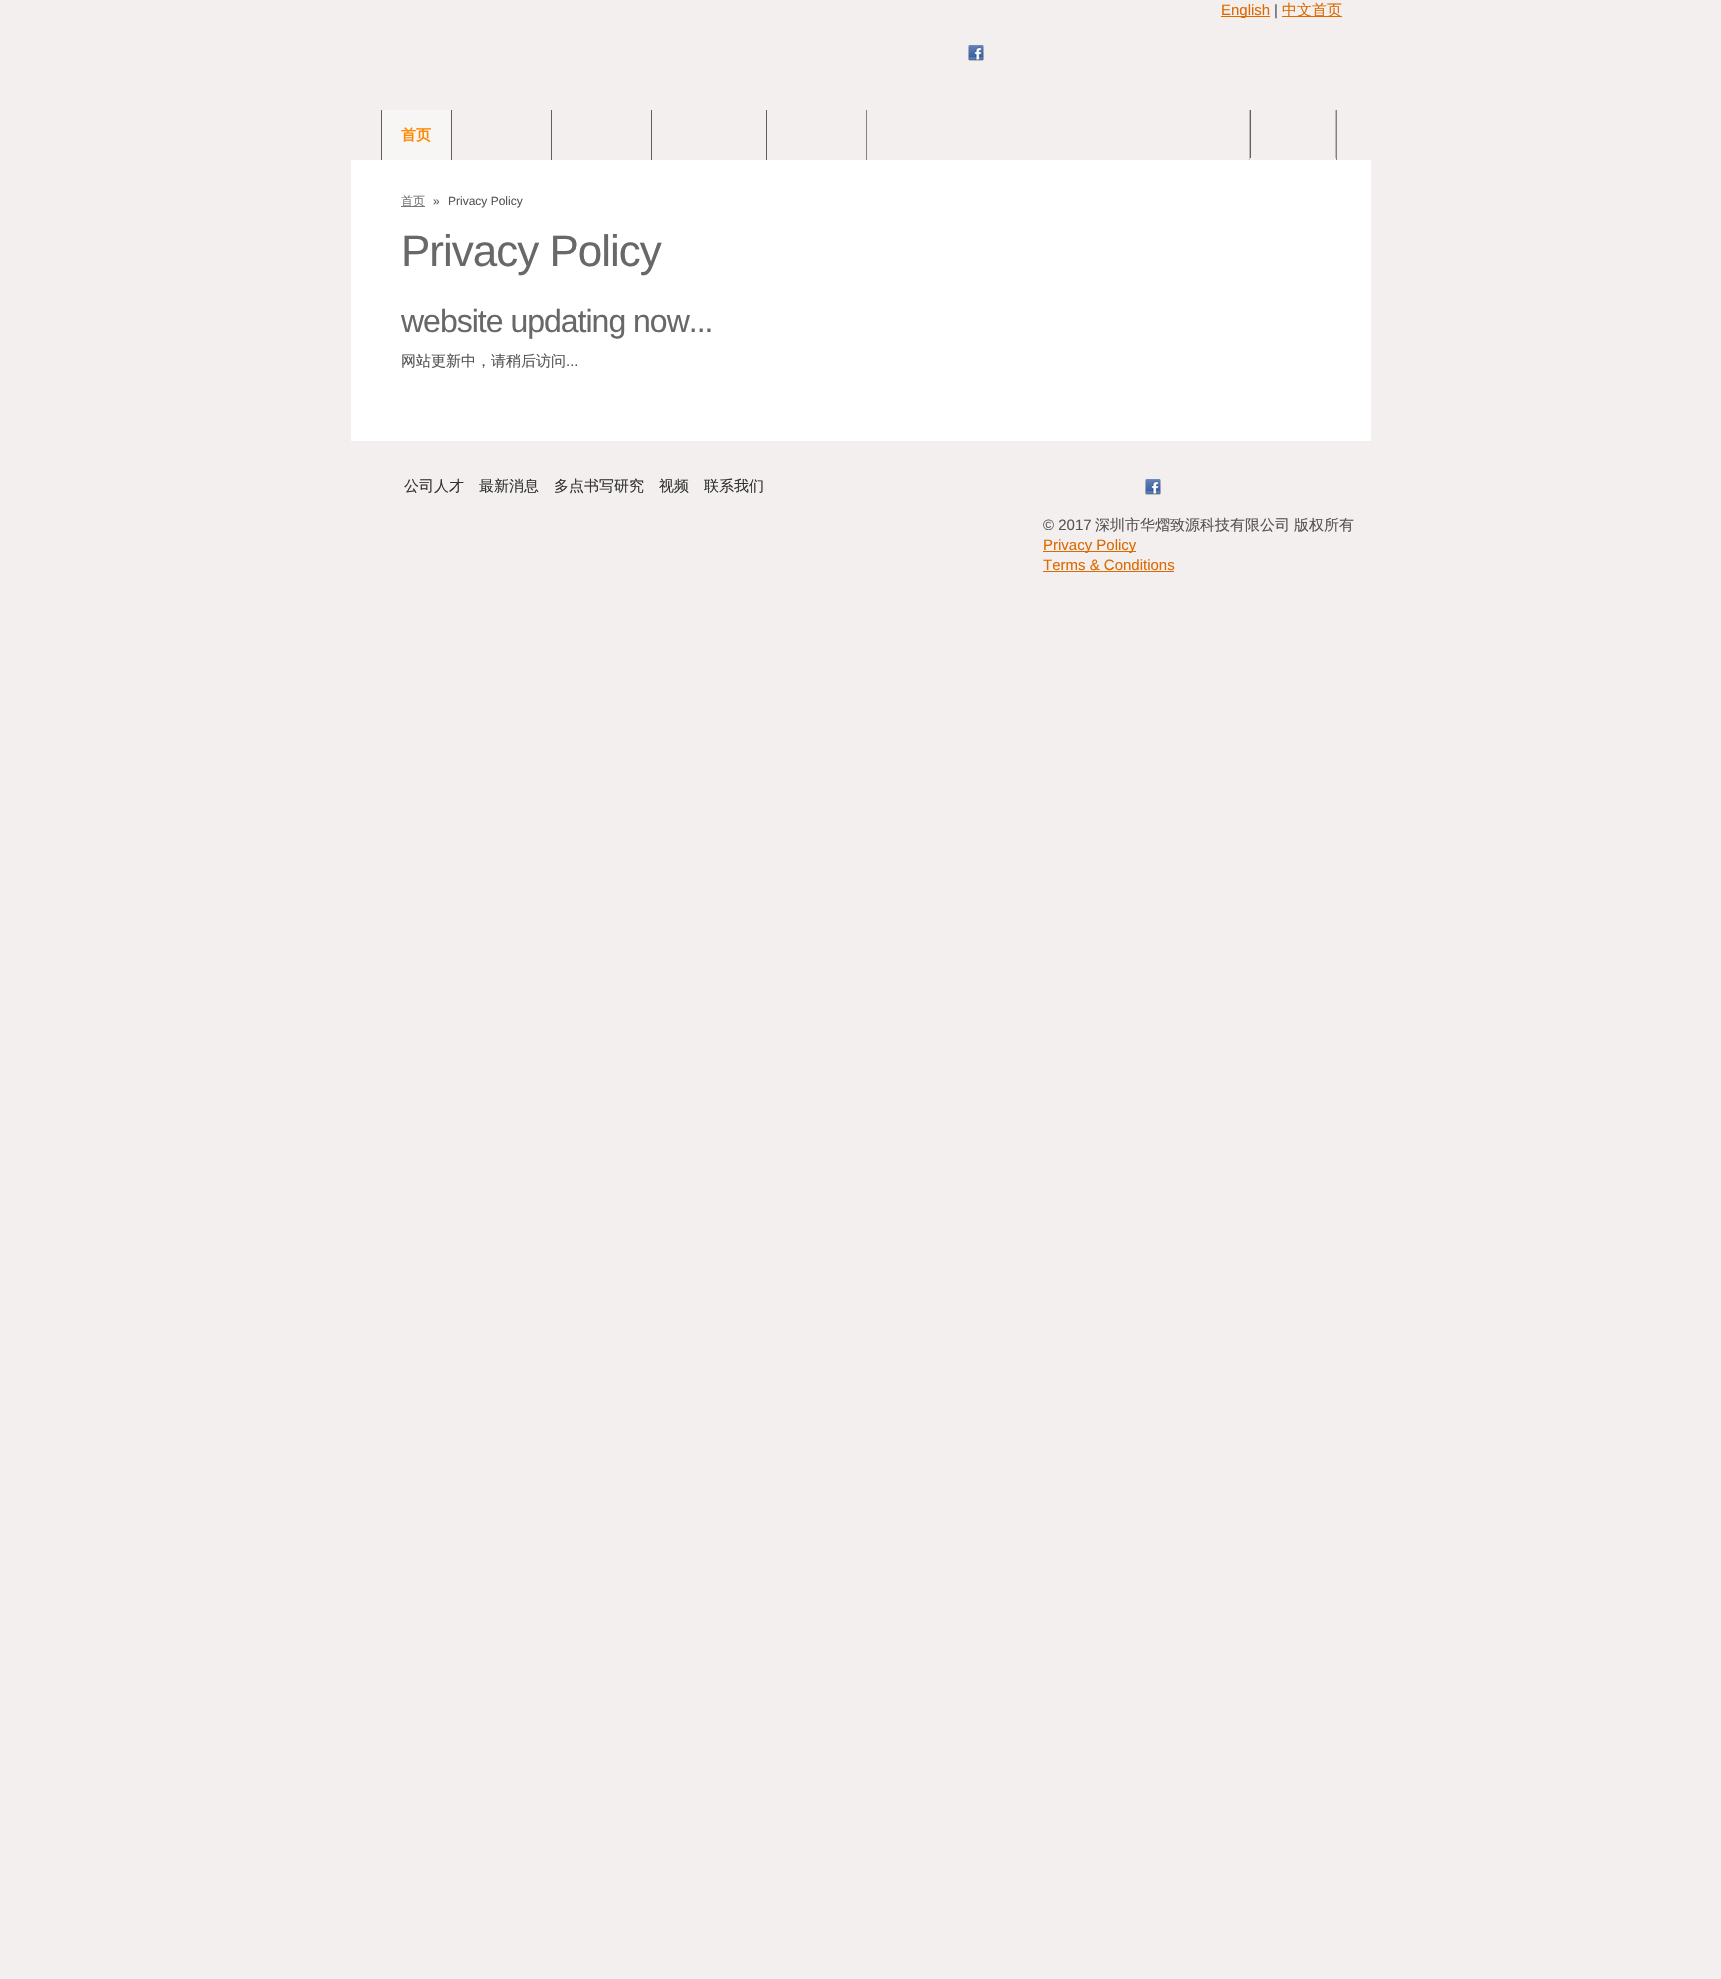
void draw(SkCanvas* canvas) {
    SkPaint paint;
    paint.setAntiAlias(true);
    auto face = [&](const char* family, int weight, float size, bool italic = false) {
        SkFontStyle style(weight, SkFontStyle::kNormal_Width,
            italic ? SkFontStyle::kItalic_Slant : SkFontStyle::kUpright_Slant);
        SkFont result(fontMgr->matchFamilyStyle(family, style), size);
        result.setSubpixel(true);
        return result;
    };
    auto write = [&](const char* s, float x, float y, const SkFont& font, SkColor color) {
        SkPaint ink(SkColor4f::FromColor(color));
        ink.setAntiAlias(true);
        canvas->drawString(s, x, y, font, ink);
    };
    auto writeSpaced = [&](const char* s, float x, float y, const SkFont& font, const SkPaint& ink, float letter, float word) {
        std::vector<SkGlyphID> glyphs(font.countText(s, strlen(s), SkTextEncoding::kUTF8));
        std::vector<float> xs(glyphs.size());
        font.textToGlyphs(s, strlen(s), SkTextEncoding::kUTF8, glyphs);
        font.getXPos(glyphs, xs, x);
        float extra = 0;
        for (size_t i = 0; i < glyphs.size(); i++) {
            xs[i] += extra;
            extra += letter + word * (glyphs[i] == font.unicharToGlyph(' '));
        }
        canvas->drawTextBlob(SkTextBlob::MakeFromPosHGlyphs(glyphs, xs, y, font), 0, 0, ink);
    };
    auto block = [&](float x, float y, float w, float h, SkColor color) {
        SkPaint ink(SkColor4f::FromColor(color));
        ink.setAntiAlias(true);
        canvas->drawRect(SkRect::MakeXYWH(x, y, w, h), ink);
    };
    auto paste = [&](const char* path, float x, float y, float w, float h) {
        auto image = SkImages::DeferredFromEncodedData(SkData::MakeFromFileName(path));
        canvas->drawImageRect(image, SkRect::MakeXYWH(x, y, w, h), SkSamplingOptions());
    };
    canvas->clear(SkColorSetRGB(243, 239, 238));
    block(1221, 16, 49, 1, SkColorSetRGB(222, 105, 0));
    auto kFont1 = face("Liberation Sans", 400, 15);
    write("English", 1221, 15, kFont1, SkColorSetRGB(222, 105, 0));
    write("|", 1274, 15, kFont1, SkColorSetRGB(85, 85, 85));
    block(1282, 16, 60, 1, SkColorSetRGB(222, 105, 0));
    auto kFont2 = face("WenQuanYi Zen Hei", 500, 15);
    write("中文首页", 1282, 15, kFont2, SkColorSetRGB(222, 105, 0));
    paste("pic1.png", 968, 45, 16, 16);
    block(866, 110, 1, 50, SkColorSetRGB(124, 132, 136));
    block(381, 110, 1, 50, SkColorSetRGB(95, 96, 96));
    block(382, 110, 69, 50, SkColorSetRGB(248, 246, 244));
    auto kFont3 = face("WenQuanYi Zen Hei", 700, 15);
    write("首页", 401, 140, kFont3, SkColorSetRGB(255, 136, 0));
    block(451, 110, 1, 50, SkColorSetRGB(95, 96, 96));
    block(551, 110, 1, 50, SkColorSetRGB(95, 96, 96));
    block(651, 110, 1, 50, SkColorSetRGB(95, 96, 96));
    block(766, 110, 1, 50, SkColorSetRGB(95, 96, 96));
    block(1336, 110, 1, 50, SkColorSetRGB(124, 132, 136));
    block(1249, 110, 1, 50, SkColorSetRGB(187, 187, 187));
    block(1250, 110, 1, 48, SkColorSetRGB(95, 96, 96));
    block(1335, 110, 1, 48, SkColorSetRGB(187, 187, 187));
    block(351, 160, 1020, 281, SK_ColorWHITE);
    block(401, 206, 24, 1, SkColorSetRGB(119, 119, 119));
    auto kFont4 = face("WenQuanYi Zen Hei", 500, 12);
    write("首页", 401, 205, kFont4, SkColorSetRGB(119, 119, 119));
    auto kFont5 = face("Liberation Sans", 400, 12);
    write("»", 433, 205, kFont5, SkColorSetRGB(85, 85, 85));
    write("Privacy Policy", 448, 205, kFont5, SkColorSetRGB(85, 85, 85));
    auto kFont6 = face("Liberation Sans", 400, 44);
    paint.setColor(SkColorSetRGB(104, 104, 104));
    writeSpaced("Privacy Policy", 401, 266, kFont6, paint, -1, 0);
    auto kFont7 = face("Liberation Sans", 400, 32);
    writeSpaced("website updating now...", 401, 332, kFont7, paint, -1, 0);
    write("网站更新中，请稍后访问", 401, 366, kFont2, SkColorSetRGB(85, 85, 85));
    write("...", 566, 366, kFont1, SkColorSetRGB(85, 85, 85));
    write("公司人才", 404, 491, kFont2, SkColorSetRGB(51, 51, 51));
    write("最新消息", 479, 491, kFont2, SkColorSetRGB(51, 51, 51));
    write("多点书写研究", 554, 491, kFont2, SkColorSetRGB(51, 51, 51));
    write("视频", 659, 491, kFont2, SkColorSetRGB(51, 51, 51));
    write("联系我们", 704, 491, kFont2, SkColorSetRGB(51, 51, 51));
    paste("pic1.png", 1145, 479, 16, 16);
    write("© 2017", 1043, 530, kFont1, SkColorSetRGB(85, 85, 85));
    write("深圳市华熠致源科技有限公司", 1095, 530, kFont2, SkColorSetRGB(85, 85, 85));
    write("版权所有", 1294, 530, kFont2, SkColorSetRGB(85, 85, 85));
    block(1043, 551, 93, 1, SkColorSetRGB(222, 105, 0));
    write("Privacy Policy", 1043, 550, kFont1, SkColorSetRGB(222, 105, 0));
    write("Terms & Conditions", 1043, 570, kFont1, SkColorSetRGB(222, 105, 0));
    block(1043, 571, 131, 1, SkColorSetRGB(222, 105, 0));
}
